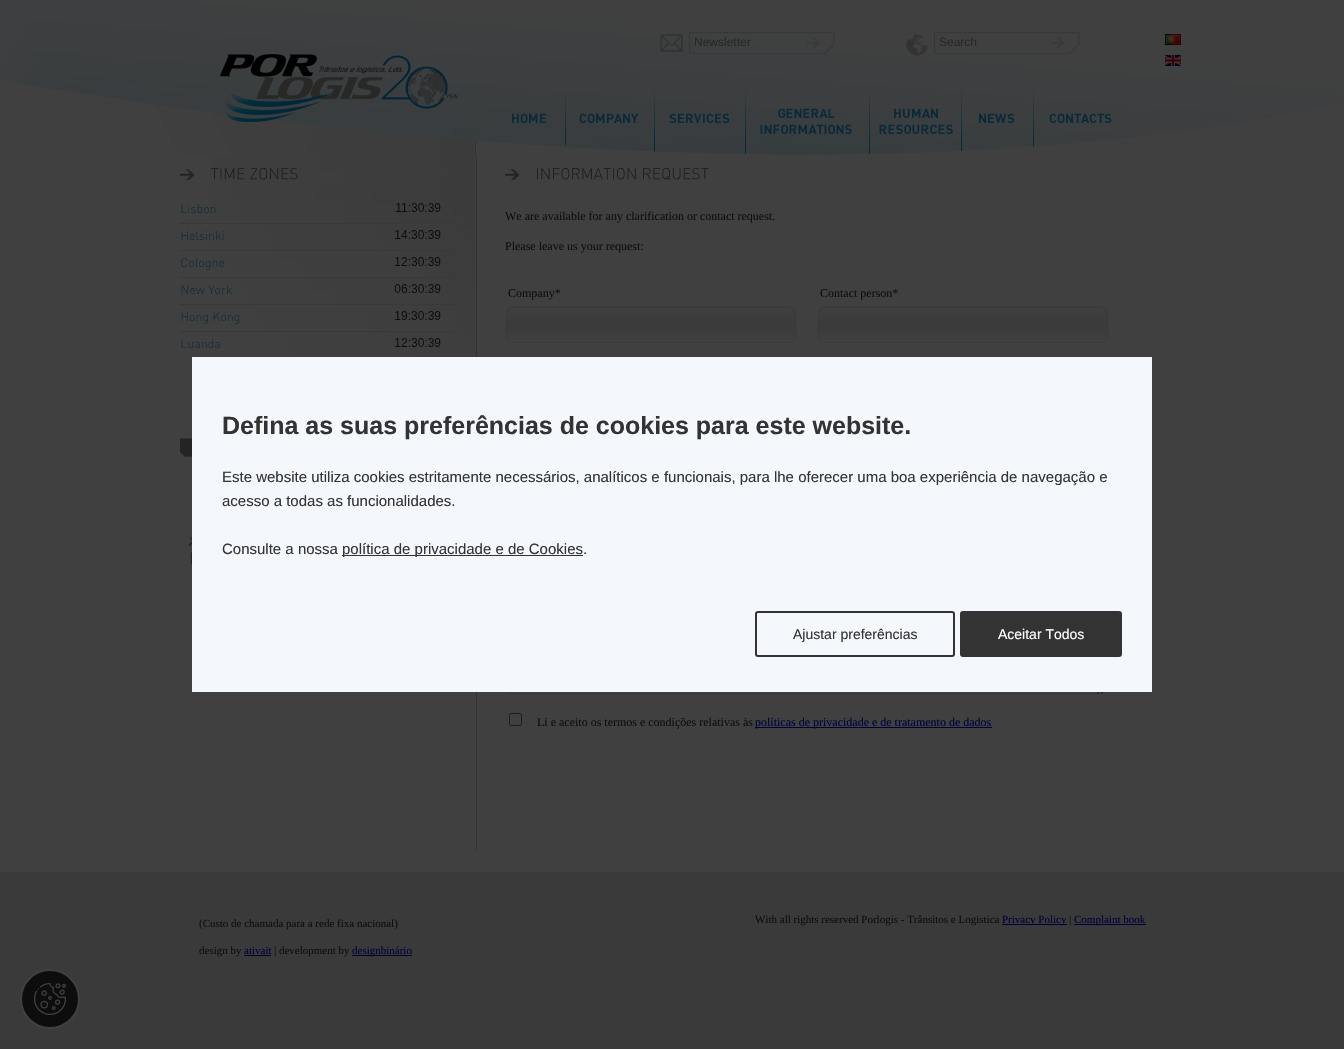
void draw(SkCanvas* canvas) {
    SkPaint paint;
    paint.setAntiAlias(true);
    auto face = [&](const char* family, int weight, float size, bool italic = false) {
        SkFontStyle style(weight, SkFontStyle::kNormal_Width,
            italic ? SkFontStyle::kItalic_Slant : SkFontStyle::kUpright_Slant);
        SkFont result(fontMgr->matchFamilyStyle(family, style), size);
        result.setSubpixel(true);
        return result;
    };
    auto write = [&](const char* s, float x, float y, const SkFont& font, SkColor color) {
        SkPaint ink(SkColor4f::FromColor(color));
        ink.setAntiAlias(true);
        canvas->drawString(s, x, y, font, ink);
    };
    auto block = [&](float x, float y, float w, float h, SkColor color) {
        SkPaint ink(SkColor4f::FromColor(color));
        ink.setAntiAlias(true);
        canvas->drawRect(SkRect::MakeXYWH(x, y, w, h), ink);
    };
    auto card = [&](float x, float y, float w, float h, float radius, SkColor color) {
        SkPaint ink(SkColor4f::FromColor(color));
        ink.setAntiAlias(true);
        canvas->drawRoundRect(SkRect::MakeXYWH(x, y, w, h), radius, radius, ink);
    };
    auto paste = [&](const char* path, float x, float y, float w, float h) {
        auto image = SkImages::DeferredFromEncodedData(SkData::MakeFromFileName(path));
        canvas->drawImageRect(image, SkRect::MakeXYWH(x, y, w, h), SkSamplingOptions());
    };
    canvas->clear(SkColorSetRGB(58, 58, 58));
    block(0, 155, 1344, 717, SkColorSetRGB(64, 64, 64));
    paste("pic1.png", 0, 0, 1344, 155);
    paste("pic2.png", 660, 34, 23, 18);
    paste("pic3.png", 689, 32, 146, 22);
    auto kFont1 = face("Liberation Sans", 400, 12);
    write("Newsletter", 694, 46, kFont1, SkColorSetRGB(39, 39, 39));
    paste("pic4.png", 906, 34, 22, 22);
    paste("pic5.png", 934, 32, 146, 22);
    write("Search", 939, 46, kFont1, SkColorSetRGB(39, 39, 39));
    paste("pic6.png", 1165, 34, 16, 11);
    paste("pic7.png", 1165, 55, 16, 11);
    paste("pic8.png", 220, 54, 238, 68);
    paste("pic9.png", 477, 87, 89, 68);
    paste("pic10.png", 579, 87, 76, 65);
    paste("pic11.png", 655, 87, 91, 68);
    paste("pic12.png", 746, 87, 124, 68);
    paste("pic13.png", 870, 87, 92, 68);
    paste("pic14.png", 962, 87, 72, 65);
    paste("pic15.png", 1034, 113, 93, 34);
    paste("pic16.png", 209, 155, 268, 695);
    paste("pic17.png", 264, 143, 213, 35);
    paste("pic18.png", 472, 141, 5, 16);
    paste("pic19.png", 180, 169, 14, 11);
    paste("pic20.png", 210, 168, 35, 12);
    paste("pic21.png", 250, 168, 48, 12);
    block(180, 223, 275, 1, SkColorSetRGB(57, 57, 57));
    paste("pic22.png", 181, 204, 35, 10);
    paste("pic23.png", 396, 203, 45, 9);
    block(180, 250, 275, 1, SkColorSetRGB(57, 57, 57));
    paste("pic24.png", 181, 231, 43, 10);
    paste("pic25.png", 395, 230, 46, 9);
    block(180, 277, 275, 1, SkColorSetRGB(57, 57, 57));
    paste("pic26.png", 181, 258, 43, 12);
    paste("pic27.png", 395, 257, 46, 9);
    block(180, 304, 275, 1, SkColorSetRGB(57, 57, 57));
    paste("pic28.png", 181, 285, 24, 10);
    paste("pic29.png", 208, 285, 24, 10);
    paste("pic30.png", 394, 284, 47, 9);
    block(180, 331, 275, 1, SkColorSetRGB(57, 57, 57));
    paste("pic31.png", 181, 312, 27, 12);
    paste("pic32.png", 213, 312, 27, 12);
    paste("pic33.png", 395, 311, 46, 9);
    paste("pic34.png", 181, 339, 39, 10);
    paste("pic35.png", 395, 338, 46, 9);
    paste("pic36.png", 180, 437, 12, 128);
    paste("pic19.png", 505, 169, 14, 11);
    paste("pic37.png", 537, 168, 99, 12);
    paste("pic38.png", 643, 168, 66, 12);
    auto kFont2 = face("Liberation Serif", 400, 12);
    write("We are available for any clarification or contact request.", 505, 220, kFont2, SkColorSetRGB(13, 13, 13));
    write("Please leave us your request:", 505, 250, kFont2, SkColorSetRGB(13, 13, 13));
    write("Company*", 508, 297, kFont2, SkColorSetRGB(13, 13, 13));
    paste("pic39.png", 505, 306, 292, 37);
    write("Contact person*", 820, 297, kFont2, SkColorSetRGB(13, 13, 13));
    paste("pic39.png", 817, 306, 292, 37);
    paste("pic40.png", 505, 692, 600, 3);
    paint.setStyle(SkPaint::kStroke_Style);
    paint.setStrokeWidth(1);
    paint.setColor(SkColorSetRGB(30, 30, 30));
    canvas->drawRoundRect(SkRect::MakeXYWH(509.5f, 713.5f, 12, 12), 1.5f, 1.5f, paint);
    write("Li e aceito os termos e condições relativas às", 537, 726, kFont2, SkColorSetRGB(13, 13, 13));
    block(755, 727, 237, 1, SkColorSetRGB(0, 0, 60));
    write("políticas de privacidade e de tratamento de dados", 755, 726, kFont2, SkColorSetRGB(0, 0, 60));
    auto kFont3 = face("Liberation Serif", 400, 11);
    write("(Custo de chamada para a rede fixa nacional)", 199, 927, kFont3, SkColorSetRGB(13, 13, 13));
    write("design by", 199, 954, kFont3, SkColorSetRGB(13, 13, 13));
    write("ativait", 244, 954, kFont3, SkColorSetRGB(0, 0, 60));
    block(244, 955, 27, 1, SkColorSetRGB(0, 0, 60));
    write("| development by", 274, 954, kFont3, SkColorSetRGB(13, 13, 13));
    block(352, 955, 60, 1, SkColorSetRGB(0, 0, 60));
    write("designbinário", 352, 954, kFont3, SkColorSetRGB(0, 0, 60));
    write("With all rights reserved Porlogis - Trânsitos e Logistica", 755, 923, kFont3, SkColorSetRGB(13, 13, 13));
    block(1002, 924, 65, 1, SkColorSetRGB(0, 0, 60));
    write("Privacy Policy", 1002, 923, kFont3, SkColorSetRGB(0, 0, 60));
    write("|", 1069, 923, kFont3, SkColorSetRGB(13, 13, 13));
    block(1074, 924, 72, 1, SkColorSetRGB(0, 0, 60));
    write("Complaint book", 1074, 923, kFont3, SkColorSetRGB(0, 0, 60));
    block(192, 357, 960, 335, SkColorSetRGB(244, 247, 252));
    auto kFont4 = face("Liberation Sans", 700, 25);
    write("Defina as suas preferências de cookies para este website.", 222, 434, kFont4, SkColorSetRGB(51, 51, 51));
    auto kFont5 = face("Liberation Sans", 400, 15);
    write("Este website utiliza cookies estritamente necessários, analíticos e funcionais, para lhe oferecer uma boa experiência de navegação e", 222, 482, kFont5, SkColorSetRGB(51, 51, 51));
    write("acesso a todas as funcionalidades.", 222, 506, kFont5, SkColorSetRGB(51, 51, 51));
    write("Consulte a nossa", 222, 554, kFont5, SkColorSetRGB(51, 51, 51));
    block(342, 555, 241, 1, SkColorSetRGB(51, 51, 51));
    write("política de privacidade e de Cookies.", 342, 554, kFont5, SkColorSetRGB(51, 51, 51));
    paint.setStrokeWidth(2);
    paint.setColor(SkColorSetRGB(51, 51, 51));
    canvas->drawRoundRect(SkRect::MakeXYWH(756, 612, 198, 44), 2, 2, paint);
    auto kFont6 = face("Liberation Sans", 400, 14);
    write("Ajustar preferências", 793, 639, kFont6, SkColorSetRGB(51, 51, 51));
    card(960, 611, 162, 46, 3, SkColorSetRGB(51, 51, 51));
    write("Aceitar Todos", 998, 639, kFont6, SK_ColorWHITE);
    paint.setStyle(SkPaint::kFill_Style);
    paint.setColor(SkColorSetRGB(13, 13, 13));
    canvas->drawCircle(50, 999, 29, paint);
    paint.setStyle(SkPaint::kStroke_Style);
    paint.setColor(SkColorSetRGB(64, 64, 64));
    canvas->drawCircle(50, 999, 29, paint);
    paste("pic41.png", 34, 983, 32, 32);
}
